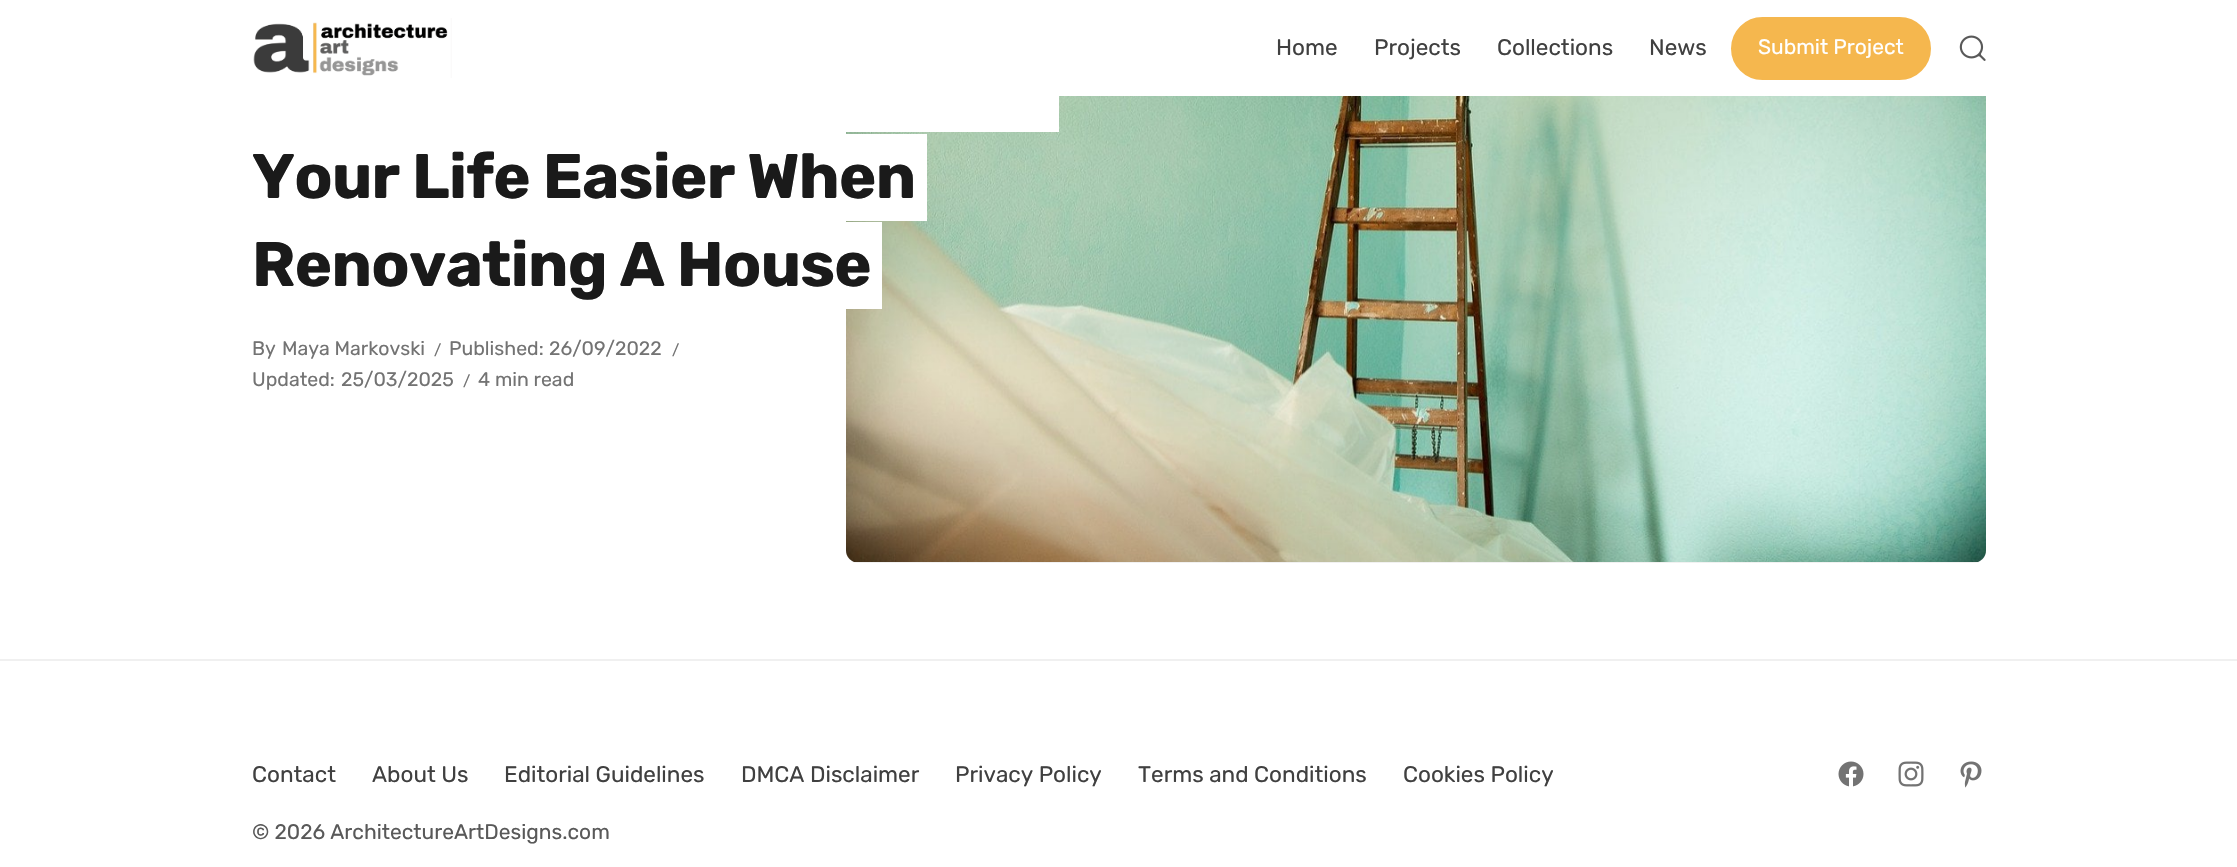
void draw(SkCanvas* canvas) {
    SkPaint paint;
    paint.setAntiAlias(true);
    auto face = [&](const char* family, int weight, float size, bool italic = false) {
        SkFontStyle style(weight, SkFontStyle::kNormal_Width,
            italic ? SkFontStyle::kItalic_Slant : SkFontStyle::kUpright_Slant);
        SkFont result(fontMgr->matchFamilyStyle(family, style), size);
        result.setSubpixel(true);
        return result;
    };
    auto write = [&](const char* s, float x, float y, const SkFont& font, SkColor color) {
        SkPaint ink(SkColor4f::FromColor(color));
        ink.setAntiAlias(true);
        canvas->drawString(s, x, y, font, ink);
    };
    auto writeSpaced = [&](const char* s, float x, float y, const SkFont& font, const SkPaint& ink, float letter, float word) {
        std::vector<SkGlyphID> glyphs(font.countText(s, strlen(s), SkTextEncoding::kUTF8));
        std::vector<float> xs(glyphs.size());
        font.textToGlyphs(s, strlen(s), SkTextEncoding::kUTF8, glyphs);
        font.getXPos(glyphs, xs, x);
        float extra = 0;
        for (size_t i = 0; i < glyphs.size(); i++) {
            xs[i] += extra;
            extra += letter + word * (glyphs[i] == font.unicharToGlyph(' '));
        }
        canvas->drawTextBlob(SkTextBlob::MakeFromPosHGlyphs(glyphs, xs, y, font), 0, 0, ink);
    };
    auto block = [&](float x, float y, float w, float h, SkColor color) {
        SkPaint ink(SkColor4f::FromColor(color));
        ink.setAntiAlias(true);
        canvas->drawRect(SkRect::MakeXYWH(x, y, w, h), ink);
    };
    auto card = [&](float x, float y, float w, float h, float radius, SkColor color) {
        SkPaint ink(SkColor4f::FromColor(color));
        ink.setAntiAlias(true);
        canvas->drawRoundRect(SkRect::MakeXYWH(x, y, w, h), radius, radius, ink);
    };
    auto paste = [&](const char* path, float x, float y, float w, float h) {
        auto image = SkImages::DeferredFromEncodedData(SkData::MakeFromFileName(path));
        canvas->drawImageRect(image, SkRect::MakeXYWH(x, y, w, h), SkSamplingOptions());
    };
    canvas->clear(SK_ColorWHITE);
    card(846, -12, 1140, 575, 12, SkColorSetRGB(241, 241, 241));
    paste("pic3.png", 846, 96, 1140, 466);
    paint.setColor(SK_ColorWHITE);
    canvas->drawPath(SkPathBuilder().moveTo(264, 126).lineTo(264, 132).lineTo(1059, 132).lineTo(1059, 57).lineTo(1047, 57).lineTo(1047, 126).close().detach(), paint);
    block(846, 0, 1140, 96, SK_ColorWHITE);
    paste("pic1.png", 253, 18, 199, 60);
    auto kFont1 = face("Rubik", 400, 22.5f);
    write("Home", 1276, 55, kFont1, SkColorSetRGB(64, 64, 64));
    write("Projects", 1374, 55, kFont1, SkColorSetRGB(64, 64, 64));
    write("Collections", 1497, 55, kFont1, SkColorSetRGB(64, 64, 64));
    write("News", 1649, 55, kFont1, SkColorSetRGB(64, 64, 64));
    paint.setColor(SkColorSetRGB(245, 183, 78));
    canvas->drawRoundRect(SkRect::MakeXYWH(1732.5f, 18.5f, 197, 60), 30, 30, paint);
    paint.setStyle(SkPaint::kStroke_Style);
    paint.setStrokeWidth(3);
    canvas->drawRoundRect(SkRect::MakeXYWH(1732.5f, 18.5f, 197, 60), 30, 30, paint);
    auto kFont2 = face("Rubik", 400, 21);
    write("Submit Project", 1758, 54, kFont2, SK_ColorWHITE);
    paste("pic2.png", 1959, 35, 27, 26);
    paint.setStyle(SkPaint::kFill_Style);
    paint.setColor(SK_ColorWHITE);
    canvas->drawPath(SkPathBuilder().moveTo(264, 134).lineTo(264, 140).lineTo(915, 140).lineTo(915, 209).lineTo(927, 209).lineTo(927, 134).close().detach(), paint);
    canvas->drawPath(SkPathBuilder().moveTo(264, 214).lineTo(264, 221).lineTo(927, 221).lineTo(927, 146).lineTo(915, 146).lineTo(915, 214).close().detach(), paint);
    block(846, 140, 69, 74, SK_ColorWHITE);
    auto kFont3 = face("Rubik", 700, 63);
    paint.setColor(SkColorSetRGB(26, 26, 26));
    writeSpaced("Your Life Easier When", 252, 198, kFont3, paint, -0.75f, 0);
    block(846, 96, 201, 30, SK_ColorWHITE);
    paint.setColor(SK_ColorWHITE);
    canvas->drawPath(SkPathBuilder().moveTo(264, 222).lineTo(264, 228).lineTo(870, 228).lineTo(870, 297).lineTo(882, 297).lineTo(882, 222).close().detach(), paint);
    canvas->drawPath(SkPathBuilder().moveTo(264, 303).lineTo(264, 309).lineTo(882, 309).lineTo(882, 234).lineTo(870, 234).lineTo(870, 303).close().detach(), paint);
    block(846, 228, 24, 75, SK_ColorWHITE);
    paint.setColor(SkColorSetRGB(26, 26, 26));
    writeSpaced("Renovating A House", 252, 286, kFont3, paint, -0.75f, 0);
    auto kFont4 = face("Rubik", 400, 19.5f);
    write("By", 252, 355, kFont4, SkColorSetRGB(115, 115, 115));
    write("Maya Markovski", 282, 355, kFont4, SkColorSetRGB(115, 115, 115));
    auto kFont5 = face("Rubik", 400, 15);
    write("/", 434, 355, kFont5, SkColorSetRGB(115, 115, 115));
    write("Published:", 449, 355, kFont4, SkColorSetRGB(115, 115, 115));
    write("26/09/2022", 549, 355, kFont4, SkColorSetRGB(115, 115, 115));
    write("/", 672, 355, kFont5, SkColorSetRGB(115, 115, 115));
    write("Updated:", 252, 386, kFont4, SkColorSetRGB(115, 115, 115));
    write("25/03/2025", 341, 386, kFont4, SkColorSetRGB(115, 115, 115));
    write("/", 463, 386, kFont5, SkColorSetRGB(115, 115, 115));
    write("4 min read", 478, 386, kFont4, SkColorSetRGB(115, 115, 115));
    block(0, 659, 2237, 2, SkColorSetRGB(240, 240, 240));
    write("Contact", 252, 782, kFont1, SkColorSetRGB(64, 64, 64));
    write("About Us", 372, 782, kFont1, SkColorSetRGB(64, 64, 64));
    write("Editorial Guidelines", 504, 782, kFont1, SkColorSetRGB(64, 64, 64));
    write("DMCA Disclaimer", 741, 782, kFont1, SkColorSetRGB(64, 64, 64));
    write("Privacy Policy", 955, 782, kFont1, SkColorSetRGB(64, 64, 64));
    write("Terms and Conditions", 1138, 782, kFont1, SkColorSetRGB(64, 64, 64));
    write("Cookies Policy", 1403, 782, kFont1, SkColorSetRGB(64, 64, 64));
    paste("pic4.png", 1838, 761, 26, 26);
    paste("pic5.png", 1898, 761, 26, 26);
    paste("pic6.png", 1960, 761, 22, 27);
    write("© 2026 ArchitectureArtDesigns.com", 252, 839, kFont2, SkColorSetRGB(89, 89, 89));
}
